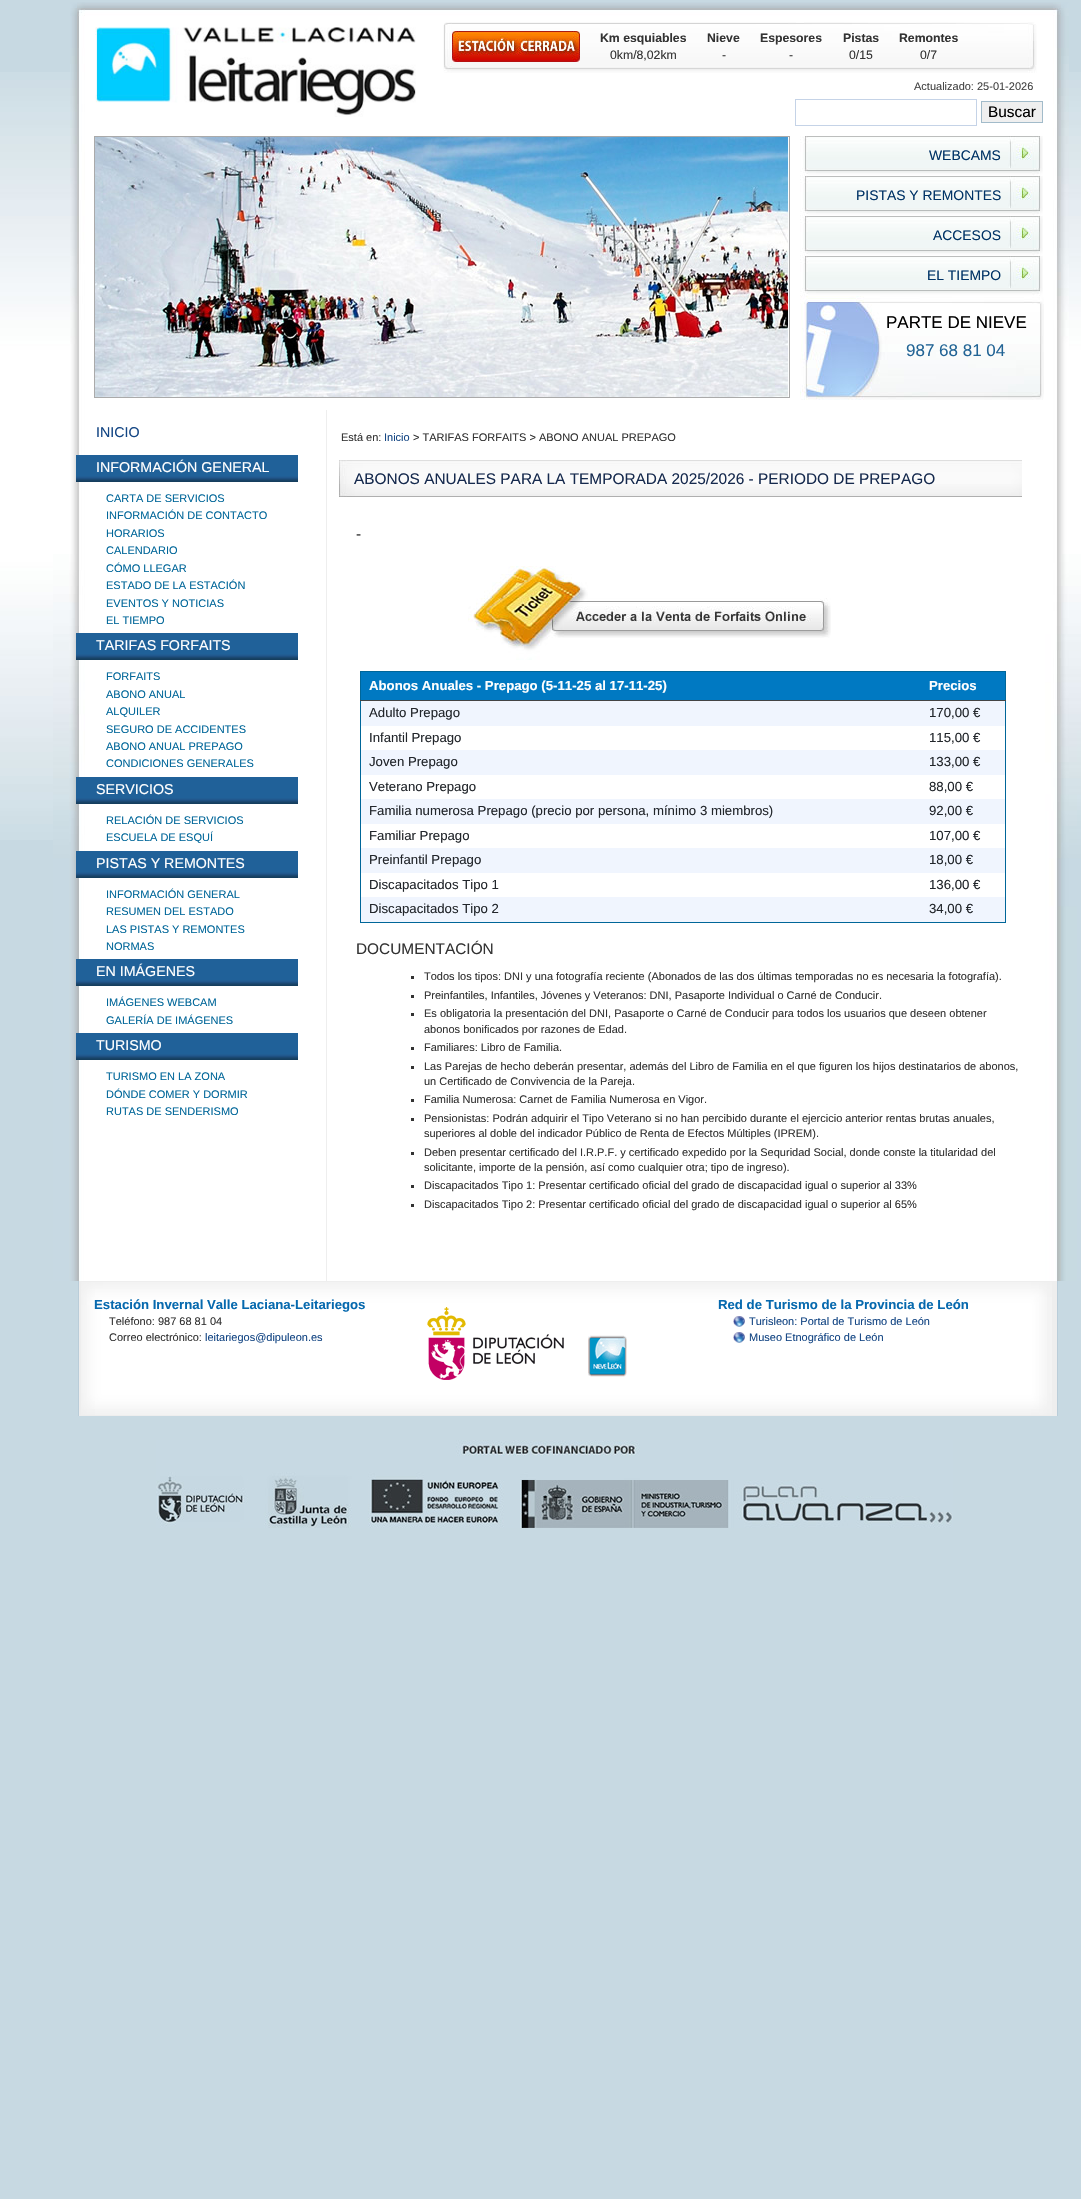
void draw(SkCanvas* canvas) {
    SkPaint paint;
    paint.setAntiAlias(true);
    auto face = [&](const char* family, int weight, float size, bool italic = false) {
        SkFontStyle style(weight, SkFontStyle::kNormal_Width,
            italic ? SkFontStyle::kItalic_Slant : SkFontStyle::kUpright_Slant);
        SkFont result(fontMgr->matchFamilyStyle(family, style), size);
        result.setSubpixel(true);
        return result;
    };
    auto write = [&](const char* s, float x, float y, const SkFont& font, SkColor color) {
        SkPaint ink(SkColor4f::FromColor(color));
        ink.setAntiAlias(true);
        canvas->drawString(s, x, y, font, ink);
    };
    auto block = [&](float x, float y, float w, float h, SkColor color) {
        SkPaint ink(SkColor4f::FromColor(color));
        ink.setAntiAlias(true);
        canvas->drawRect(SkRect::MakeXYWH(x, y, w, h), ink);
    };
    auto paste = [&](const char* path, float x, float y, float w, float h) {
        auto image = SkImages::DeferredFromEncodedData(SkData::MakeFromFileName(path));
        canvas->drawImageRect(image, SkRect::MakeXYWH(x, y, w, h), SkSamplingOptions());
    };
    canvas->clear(SkColorSetRGB(199, 217, 226));
    paste("pic1.png", 0, 72, 1081, 768);
    paste("pic2.png", 70, 2, 999, 408);
    paste("pic3.png", 95, 27, 321, 90);
    paste("pic4.png", 443, 22, 594, 51);
    paste("pic5.png", 452, 31, 128, 31);
    auto kFont1 = face("Liberation Sans", 700, 12.25f);
    write("Km esquiables", 600, 42, kFont1, SkColorSetRGB(51, 51, 51));
    auto kFont2 = face("Liberation Sans", 400, 12.25f);
    write("0km/8,02km", 610, 59, kFont2, SkColorSetRGB(51, 51, 51));
    write("Nieve", 707, 42, kFont1, SkColorSetRGB(51, 51, 51));
    write("-", 722, 59, kFont2, SkColorSetRGB(51, 51, 51));
    write("Espesores", 760, 42, kFont1, SkColorSetRGB(51, 51, 51));
    write("-", 789, 59, kFont2, SkColorSetRGB(51, 51, 51));
    write("Pistas", 843, 42, kFont1, SkColorSetRGB(51, 51, 51));
    write("0/15", 849, 59, kFont2, SkColorSetRGB(51, 51, 51));
    write("Remontes", 899, 42, kFont1, SkColorSetRGB(51, 51, 51));
    write("0/7", 920, 59, kFont2, SkColorSetRGB(51, 51, 51));
    auto kFont3 = face("Liberation Sans", 400, 11);
    write("Actualizado: 25-01-2026", 914, 90, kFont3, SkColorSetRGB(68, 68, 68));
    paint.setStyle(SkPaint::kStroke_Style);
    paint.setStrokeWidth(1);
    paint.setColor(SkColorSetRGB(197, 211, 231));
    canvas->drawRect(SkRect::MakeXYWH(795.5f, 99.5f, 181, 26), paint);
    paint.setStyle(SkPaint::kFill_Style);
    paint.setColor(SkColorSetRGB(239, 239, 239));
    canvas->drawRect(SkRect::MakeXYWH(981.5f, 101.5f, 61, 21), paint);
    paint.setStyle(SkPaint::kStroke_Style);
    paint.setColor(SkColorSetRGB(162, 187, 202));
    canvas->drawRect(SkRect::MakeXYWH(981.5f, 101.5f, 61, 21), paint);
    auto kFont4 = face("Liberation Sans", 400, 15.4f);
    write("Buscar", 988, 117, kFont4, SK_ColorBLACK);
    paint.setColor(SkColorSetRGB(170, 170, 170));
    canvas->drawRect(SkRect::MakeXYWH(94.5f, 136.5f, 695, 261), paint);
    paste("pic6.png", 95, 137, 693, 260);
    paste("pic7.png", 800, 136, 243, 40);
    auto kFont5 = face("Liberation Sans", 400, 13.9f);
    write("WEBCAMS", 929, 160, kFont5, SkColorSetRGB(0, 51, 102));
    paste("pic7.png", 800, 176, 243, 40);
    write("PISTAS Y REMONTES", 856, 200, kFont5, SkColorSetRGB(0, 51, 102));
    paste("pic7.png", 800, 216, 243, 40);
    write("ACCESOS", 933, 240, kFont5, SkColorSetRGB(0, 51, 102));
    paste("pic7.png", 800, 256, 243, 40);
    write("EL TIEMPO", 927, 280, kFont5, SkColorSetRGB(0, 51, 102));
    paste("pic8.png", 800, 296, 244, 104);
    auto kFont6 = face("Liberation Sans", 400, 17);
    write("PARTE DE NIEVE", 886, 328, kFont6, SK_ColorBLACK);
    write("987 68 81 04", 906, 356, kFont6, SkColorSetRGB(34, 100, 149));
    paste("pic9.png", 53, 410, 1028, 871);
    block(326, 410, 1, 871, SkColorSetRGB(238, 238, 238));
    auto kFont7 = face("Liberation Sans", 400, 14.25f);
    write("INICIO", 96, 437, kFont7, SkColorSetRGB(20, 70, 132));
    block(76, 455, 222, 21, SkColorSetRGB(32, 97, 153));
    paste("pic10.png", 76, 476, 222, 6);
    write("INFORMACIÓN GENERAL", 96, 472, kFont7, SK_ColorWHITE);
    write("CARTA DE SERVICIOS", 106, 502, kFont3, SkColorSetRGB(0, 102, 153));
    write("INFORMACIÓN DE CONTACTO", 106, 519, kFont3, SkColorSetRGB(0, 102, 153));
    write("HORARIOS", 106, 537, kFont3, SkColorSetRGB(0, 102, 153));
    write("CALENDARIO", 106, 554, kFont3, SkColorSetRGB(0, 102, 153));
    write("CÓMO LLEGAR", 106, 572, kFont3, SkColorSetRGB(0, 102, 153));
    write("ESTADO DE LA ESTACIÓN", 106, 589, kFont3, SkColorSetRGB(0, 102, 153));
    write("EVENTOS Y NOTICIAS", 106, 607, kFont3, SkColorSetRGB(0, 102, 153));
    write("EL TIEMPO", 106, 624, kFont3, SkColorSetRGB(0, 102, 153));
    block(76, 633, 222, 21, SkColorSetRGB(32, 97, 153));
    paste("pic10.png", 76, 654, 222, 6);
    write("TARIFAS FORFAITS", 96, 650, kFont7, SK_ColorWHITE);
    write("FORFAITS", 106, 680, kFont3, SkColorSetRGB(0, 102, 153));
    write("ABONO ANUAL", 106, 698, kFont3, SkColorSetRGB(0, 102, 153));
    write("ALQUILER", 106, 715, kFont3, SkColorSetRGB(0, 102, 153));
    write("SEGURO DE ACCIDENTES", 106, 733, kFont3, SkColorSetRGB(0, 102, 153));
    write("ABONO ANUAL PREPAGO", 106, 750, kFont3, SkColorSetRGB(0, 102, 153));
    write("CONDICIONES GENERALES", 106, 767, kFont3, SkColorSetRGB(0, 102, 153));
    block(76, 777, 222, 21, SkColorSetRGB(32, 97, 153));
    paste("pic10.png", 76, 798, 222, 6);
    write("SERVICIOS", 96, 794, kFont7, SK_ColorWHITE);
    write("RELACIÓN DE SERVICIOS", 106, 824, kFont3, SkColorSetRGB(0, 102, 153));
    write("ESCUELA DE ESQUÍ", 106, 841, kFont3, SkColorSetRGB(0, 102, 153));
    block(76, 851, 222, 21, SkColorSetRGB(32, 97, 153));
    paste("pic10.png", 76, 872, 222, 6);
    write("PISTAS Y REMONTES", 96, 868, kFont7, SK_ColorWHITE);
    write("INFORMACIÓN GENERAL", 106, 898, kFont3, SkColorSetRGB(0, 102, 153));
    write("RESUMEN DEL ESTADO", 106, 915, kFont3, SkColorSetRGB(0, 102, 153));
    write("LAS PISTAS Y REMONTES", 106, 933, kFont3, SkColorSetRGB(0, 102, 153));
    write("NORMAS", 106, 950, kFont3, SkColorSetRGB(0, 102, 153));
    block(76, 959, 222, 21, SkColorSetRGB(32, 97, 153));
    paste("pic10.png", 76, 980, 222, 6);
    write("EN IMÁGENES", 96, 976, kFont7, SK_ColorWHITE);
    write("IMÁGENES WEBCAM", 106, 1006, kFont3, SkColorSetRGB(0, 102, 153));
    write("GALERÍA DE IMÁGENES", 106, 1024, kFont3, SkColorSetRGB(0, 102, 153));
    block(76, 1033, 222, 21, SkColorSetRGB(32, 97, 153));
    paste("pic10.png", 76, 1054, 222, 6);
    write("TURISMO", 96, 1050, kFont7, SK_ColorWHITE);
    write("TURISMO EN LA ZONA", 106, 1080, kFont3, SkColorSetRGB(0, 102, 153));
    write("DÓNDE COMER Y DORMIR", 106, 1098, kFont3, SkColorSetRGB(0, 102, 153));
    write("RUTAS DE SENDERISMO", 106, 1115, kFont3, SkColorSetRGB(0, 102, 153));
    write("Está en:", 341, 441, kFont3, SkColorSetRGB(51, 51, 51));
    write("Inicio", 384, 441, kFont3, SkColorSetRGB(20, 70, 132));
    write("> TARIFAS FORFAITS > ABONO ANUAL PREPAGO", 413, 441, kFont3, SkColorSetRGB(51, 51, 51));
    paste("pic11.png", 339, 460, 683, 37);
    write("ABONOS ANUALES PARA LA TEMPORADA 2025/2026 - PERIODO DE PREPAGO", 354, 484, kFont4, SkColorSetRGB(22, 42, 78));
    write("-", 356, 539, kFont4, SkColorSetRGB(51, 51, 51));
    paste("pic12.png", 468, 566, 363, 94);
    block(360, 671, 646, 1, SkColorSetRGB(0, 102, 153));
    block(1005, 671, 1, 252, SkColorSetRGB(0, 102, 153));
    block(360, 922, 646, 1, SkColorSetRGB(0, 102, 153));
    block(360, 671, 1, 252, SkColorSetRGB(0, 102, 153));
    block(361, 672, 644, 28, SkColorSetRGB(0, 121, 194));
    auto kFont8 = face("Liberation Sans", 700, 13.2f);
    write("Abonos Anuales - Prepago (5-11-25 al 17-11-25)", 369, 690, kFont8, SK_ColorWHITE);
    block(360, 700, 646, 1, SkColorSetRGB(68, 68, 68));
    write("Precios", 929, 690, kFont8, SK_ColorWHITE);
    block(361, 701, 644, 25, SkColorSetRGB(240, 245, 254));
    auto kFont9 = face("Liberation Sans", 400, 13.2f);
    write("Adulto Prepago", 369, 717, kFont9, SkColorSetRGB(34, 38, 43));
    write("170,00 €", 929, 717, kFont9, SkColorSetRGB(34, 38, 43));
    write("Infantil Prepago", 369, 742, kFont9, SkColorSetRGB(34, 38, 43));
    write("115,00 €", 929, 742, kFont9, SkColorSetRGB(34, 38, 43));
    block(361, 750, 644, 25, SkColorSetRGB(240, 245, 254));
    write("Joven Prepago", 369, 766, kFont9, SkColorSetRGB(34, 38, 43));
    write("133,00 €", 929, 766, kFont9, SkColorSetRGB(34, 38, 43));
    write("Veterano Prepago", 369, 791, kFont9, SkColorSetRGB(34, 38, 43));
    write("88,00 €", 929, 791, kFont9, SkColorSetRGB(34, 38, 43));
    block(361, 799, 644, 25, SkColorSetRGB(240, 245, 254));
    write("Familia numerosa Prepago (precio por persona, mínimo 3 miembros)", 369, 815, kFont9, SkColorSetRGB(34, 38, 43));
    write("92,00 €", 929, 815, kFont9, SkColorSetRGB(34, 38, 43));
    write("Familiar Prepago", 369, 840, kFont9, SkColorSetRGB(34, 38, 43));
    write("107,00 €", 929, 840, kFont9, SkColorSetRGB(34, 38, 43));
    block(361, 848, 644, 25, SkColorSetRGB(240, 245, 254));
    write("Preinfantil Prepago", 369, 864, kFont9, SkColorSetRGB(34, 38, 43));
    write("18,00 €", 929, 864, kFont9, SkColorSetRGB(34, 38, 43));
    write("Discapacitados Tipo 1", 369, 889, kFont9, SkColorSetRGB(34, 38, 43));
    write("136,00 €", 929, 889, kFont9, SkColorSetRGB(34, 38, 43));
    block(361, 897, 644, 25, SkColorSetRGB(240, 245, 254));
    write("Discapacitados Tipo 2", 369, 913, kFont9, SkColorSetRGB(34, 38, 43));
    write("34,00 €", 929, 913, kFont9, SkColorSetRGB(34, 38, 43));
    write("DOCUMENTACIÓN", 356, 954, kFont4, SkColorSetRGB(51, 51, 51));
    block(411, 976, 3, 3, SkColorSetRGB(51, 51, 51));
    write("Todos los tipos: DNI y una fotografía reciente (Abonados de las dos últimas temporadas no es necesaria la fotografía).", 424, 980, kFont3, SkColorSetRGB(51, 51, 51));
    block(411, 995, 3, 3, SkColorSetRGB(51, 51, 51));
    write("Preinfantiles, Infantiles, Jóvenes y Veteranos: DNI, Pasaporte Individual o Carné de Conducir.", 424, 999, kFont3, SkColorSetRGB(51, 51, 51));
    block(411, 1013, 3, 3, SkColorSetRGB(51, 51, 51));
    write("Es obligatoria la presentación del DNI, Pasaporte o Carné de Conducir para todos los usuarios que deseen obtener", 424, 1017, kFont3, SkColorSetRGB(51, 51, 51));
    write("abonos bonificados por razones de Edad.", 424, 1033, kFont3, SkColorSetRGB(51, 51, 51));
    block(411, 1047, 3, 3, SkColorSetRGB(51, 51, 51));
    write("Familiares: Libro de Familia.", 424, 1051, kFont3, SkColorSetRGB(51, 51, 51));
    block(411, 1066, 3, 3, SkColorSetRGB(51, 51, 51));
    write("Las Parejas de hecho deberán presentar, además del Libro de Familia en el que figuren los hijos destinatarios de abonos,", 424, 1070, kFont3, SkColorSetRGB(51, 51, 51));
    write("un Certificado de Convivencia de la Pareja.", 424, 1085, kFont3, SkColorSetRGB(51, 51, 51));
    block(411, 1099, 3, 3, SkColorSetRGB(51, 51, 51));
    write("Familia Numerosa: Carnet de Familia Numerosa en Vigor.", 424, 1103, kFont3, SkColorSetRGB(51, 51, 51));
    block(411, 1118, 3, 3, SkColorSetRGB(51, 51, 51));
    write("Pensionistas: Podrán adquirir el Tipo Veterano si no han percibido durante el ejercicio anterior rentas brutas anuales,", 424, 1122, kFont3, SkColorSetRGB(51, 51, 51));
    write("superiores al doble del indicador Público de Renta de Efectos Múltiples (IPREM).", 424, 1137, kFont3, SkColorSetRGB(51, 51, 51));
    block(411, 1152, 3, 3, SkColorSetRGB(51, 51, 51));
    write("Deben presentar certificado del I.R.P.F. y certificado expedido por la Sequridad Social, donde conste la titularidad del", 424, 1156, kFont3, SkColorSetRGB(51, 51, 51));
    write("solicitante, importe de la pensión, así como cualquier otra; tipo de ingreso).", 424, 1171, kFont3, SkColorSetRGB(51, 51, 51));
    block(411, 1185, 3, 3, SkColorSetRGB(51, 51, 51));
    write("Discapacitados Tipo 1: Presentar certificado oficial del grado de discapacidad igual o superior al 33%", 424, 1189, kFont3, SkColorSetRGB(51, 51, 51));
    block(411, 1204, 3, 3, SkColorSetRGB(51, 51, 51));
    write("Discapacitados Tipo 2: Presentar certificado oficial del grado de discapacidad igual o superior al 65%", 424, 1208, kFont3, SkColorSetRGB(51, 51, 51));
    block(79, 1281, 978, 135, SkColorSetRGB(238, 238, 238));
    paste("pic13.png", 81, 1282, 971, 133);
    block(1057, 1281, 1, 135, SkColorSetRGB(186, 205, 217));
    block(78, 1281, 1, 135, SkColorSetRGB(186, 205, 217));
    write("Estación Invernal Valle Laciana-Leitariegos", 94, 1309, kFont8, SkColorSetRGB(6, 105, 174));
    write("Teléfono: 987 68 81 04", 109, 1325, kFont3, SkColorSetRGB(51, 51, 51));
    write("Correo electrónico:", 109, 1341, kFont3, SkColorSetRGB(51, 51, 51));
    write("leitariegos@dipuleon.es", 205, 1341, kFont3, SkColorSetRGB(20, 70, 132));
    paste("pic14.png", 427, 1307, 200, 73);
    write("Red de Turismo de la Provincia de León", 718, 1309, kFont8, SkColorSetRGB(6, 105, 174));
    paste("pic15.png", 733, 1316, 12, 11);
    write("Turisleon: Portal de Turismo de León", 749, 1325, kFont3, SkColorSetRGB(20, 70, 132));
    paste("pic15.png", 733, 1332, 12, 11);
    write("Museo Etnográfico de León", 749, 1341, kFont3, SkColorSetRGB(20, 70, 132));
    paste("pic16.png", 156, 1440, 797, 88);
}
